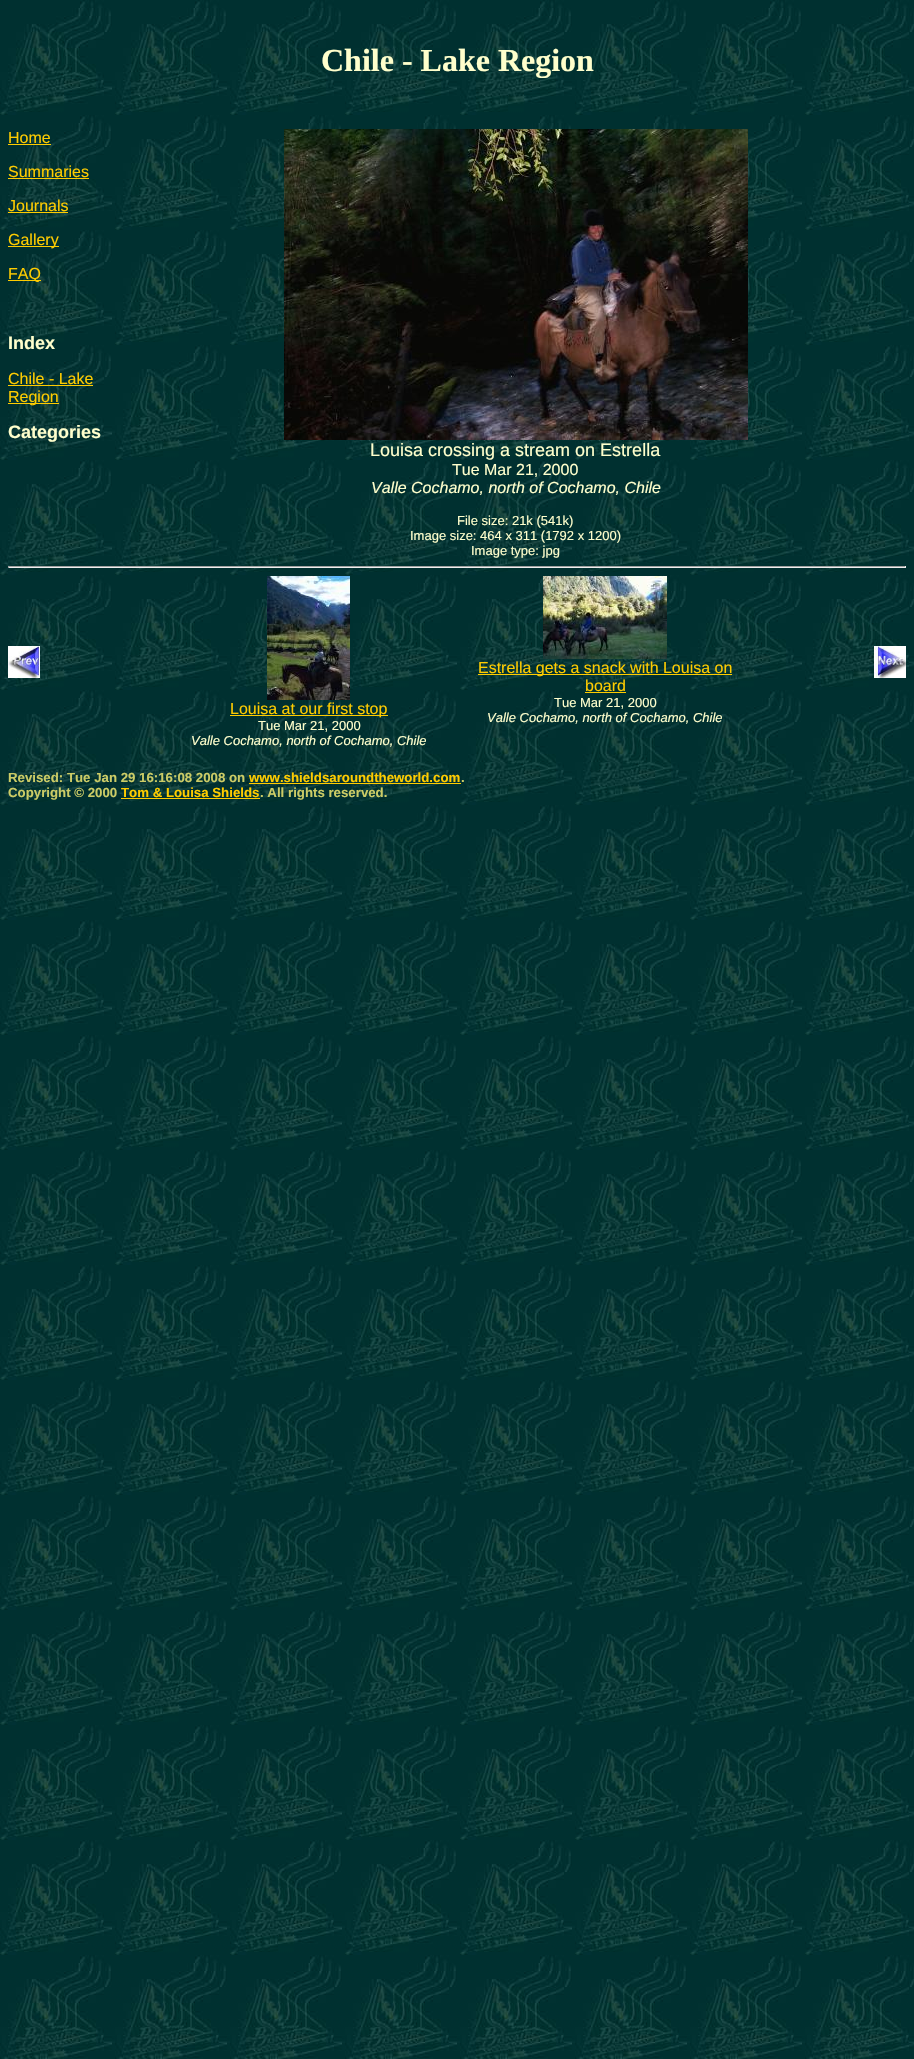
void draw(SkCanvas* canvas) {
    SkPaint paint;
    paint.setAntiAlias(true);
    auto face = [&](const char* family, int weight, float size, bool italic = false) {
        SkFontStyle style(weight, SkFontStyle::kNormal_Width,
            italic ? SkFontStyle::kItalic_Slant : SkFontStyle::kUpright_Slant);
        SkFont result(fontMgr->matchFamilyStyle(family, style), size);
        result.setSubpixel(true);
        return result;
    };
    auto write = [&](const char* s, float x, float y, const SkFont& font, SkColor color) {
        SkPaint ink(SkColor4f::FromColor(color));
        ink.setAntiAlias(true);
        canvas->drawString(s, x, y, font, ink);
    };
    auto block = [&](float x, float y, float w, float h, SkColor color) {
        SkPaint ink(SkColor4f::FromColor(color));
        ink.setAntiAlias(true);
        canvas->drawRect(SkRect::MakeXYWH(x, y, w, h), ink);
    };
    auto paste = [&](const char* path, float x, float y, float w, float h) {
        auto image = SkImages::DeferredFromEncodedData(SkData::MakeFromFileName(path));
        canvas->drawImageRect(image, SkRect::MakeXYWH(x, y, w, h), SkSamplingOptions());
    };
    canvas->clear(SK_ColorWHITE);
    paste("pic1.png", 0, 0, 914, 2059);
    auto kFont1 = face("Liberation Serif", 700, 32);
    write("Chile - Lake Region", 321, 71, kFont1, SkColorSetRGB(255, 255, 204));
    auto kFont2 = face("Liberation Sans", 400, 16);
    write("Home", 8, 143, kFont2, SkColorSetRGB(255, 204, 0));
    block(8, 144, 43, 1, SkColorSetRGB(255, 204, 0));
    write("Summaries", 8, 177, kFont2, SkColorSetRGB(255, 204, 0));
    block(8, 178, 81, 1, SkColorSetRGB(255, 204, 0));
    write("Journals", 8, 211, kFont2, SkColorSetRGB(255, 204, 0));
    block(8, 212, 60, 1, SkColorSetRGB(255, 204, 0));
    block(8, 246, 51, 1, SkColorSetRGB(255, 204, 0));
    write("Gallery", 8, 245, kFont2, SkColorSetRGB(255, 204, 0));
    block(8, 280, 33, 1, SkColorSetRGB(255, 204, 0));
    write("FAQ", 8, 279, kFont2, SkColorSetRGB(255, 204, 0));
    auto kFont3 = face("Liberation Sans", 700, 18);
    write("Index", 8, 349, kFont3, SkColorSetRGB(255, 255, 204));
    write("Chile - Lake", 8, 384, kFont2, SkColorSetRGB(255, 204, 0));
    block(8, 385, 85, 1, SkColorSetRGB(255, 204, 0));
    block(8, 403, 51, 1, SkColorSetRGB(255, 204, 0));
    write("Region", 8, 402, kFont2, SkColorSetRGB(255, 204, 0));
    write("Categories", 8, 438, kFont3, SkColorSetRGB(255, 255, 204));
    paste("pic2.png", 284, 129, 464, 311);
    auto kFont4 = face("Liberation Sans", 400, 18);
    write("Louisa crossing a stream on Estrella", 370, 456, kFont4, SkColorSetRGB(255, 255, 204));
    write("Tue Mar 21, 2000", 452, 475, kFont2, SkColorSetRGB(255, 255, 204));
    auto kFont5 = face("Liberation Sans", 400, 16, true);
    write("Valle Cochamo, north of Cochamo, Chile", 371, 493, kFont5, SkColorSetRGB(255, 255, 204));
    auto kFont6 = face("Liberation Sans", 400, 13);
    write("File size: 21k (541k)", 457, 525, kFont6, SkColorSetRGB(255, 255, 204));
    write("Image size: 464 x 311 (1792 x 1200)", 410, 540, kFont6, SkColorSetRGB(255, 255, 204));
    write("Image type: jpg", 471, 555, kFont6, SkColorSetRGB(255, 255, 204));
    block(8, 566, 898, 1, SkColorSetRGB(159, 159, 159));
    block(905, 566, 1, 2, SkColorSetRGB(238, 238, 238));
    block(8, 567, 898, 1, SkColorSetRGB(238, 238, 238));
    block(8, 566, 1, 2, SkColorSetRGB(159, 159, 159));
    paste("pic3.png", 8, 646, 32, 32);
    paste("pic4.png", 267, 576, 83, 124);
    block(230, 715, 158, 1, SkColorSetRGB(255, 204, 0));
    write("Louisa at our first stop", 230, 714, kFont2, SkColorSetRGB(255, 204, 0));
    write("Tue Mar 21, 2000", 258, 730, kFont6, SkColorSetRGB(255, 255, 204));
    auto kFont7 = face("Liberation Sans", 400, 13, true);
    write("Valle Cochamo, north of Cochamo, Chile", 191, 745, kFont7, SkColorSetRGB(255, 255, 204));
    paste("pic5.png", 543, 576, 124, 83);
    block(478, 674, 254, 1, SkColorSetRGB(255, 204, 0));
    write("Estrella gets a snack with Louisa on", 478, 673, kFont2, SkColorSetRGB(255, 204, 0));
    write("board", 585, 691, kFont2, SkColorSetRGB(255, 204, 0));
    block(585, 692, 41, 1, SkColorSetRGB(255, 204, 0));
    write("Tue Mar 21, 2000", 554, 707, kFont6, SkColorSetRGB(255, 255, 204));
    write("Valle Cochamo, north of Cochamo, Chile", 487, 722, kFont7, SkColorSetRGB(255, 255, 204));
    paste("pic6.png", 874, 646, 32, 32);
    auto kFont8 = face("Liberation Sans", 700, 13.25f);
    write("Revised: Tue Jan 29 16:16:08 2008 on", 8, 782, kFont8, SkColorSetRGB(204, 204, 102));
    write("www.shieldsaroundtheworld.com", 249, 782, kFont8, SkColorSetRGB(255, 204, 0));
    write(".", 461, 782, kFont8, SkColorSetRGB(204, 204, 102));
    block(249, 783, 212, 1, SkColorSetRGB(255, 204, 0));
    write("Copyright © 2000", 8, 797, kFont8, SkColorSetRGB(204, 204, 102));
    write("Tom & Louisa Shields", 121, 797, kFont8, SkColorSetRGB(255, 204, 0));
    write(". All rights reserved.", 260, 797, kFont8, SkColorSetRGB(204, 204, 102));
    block(121, 798, 139, 1, SkColorSetRGB(255, 204, 0));
}
